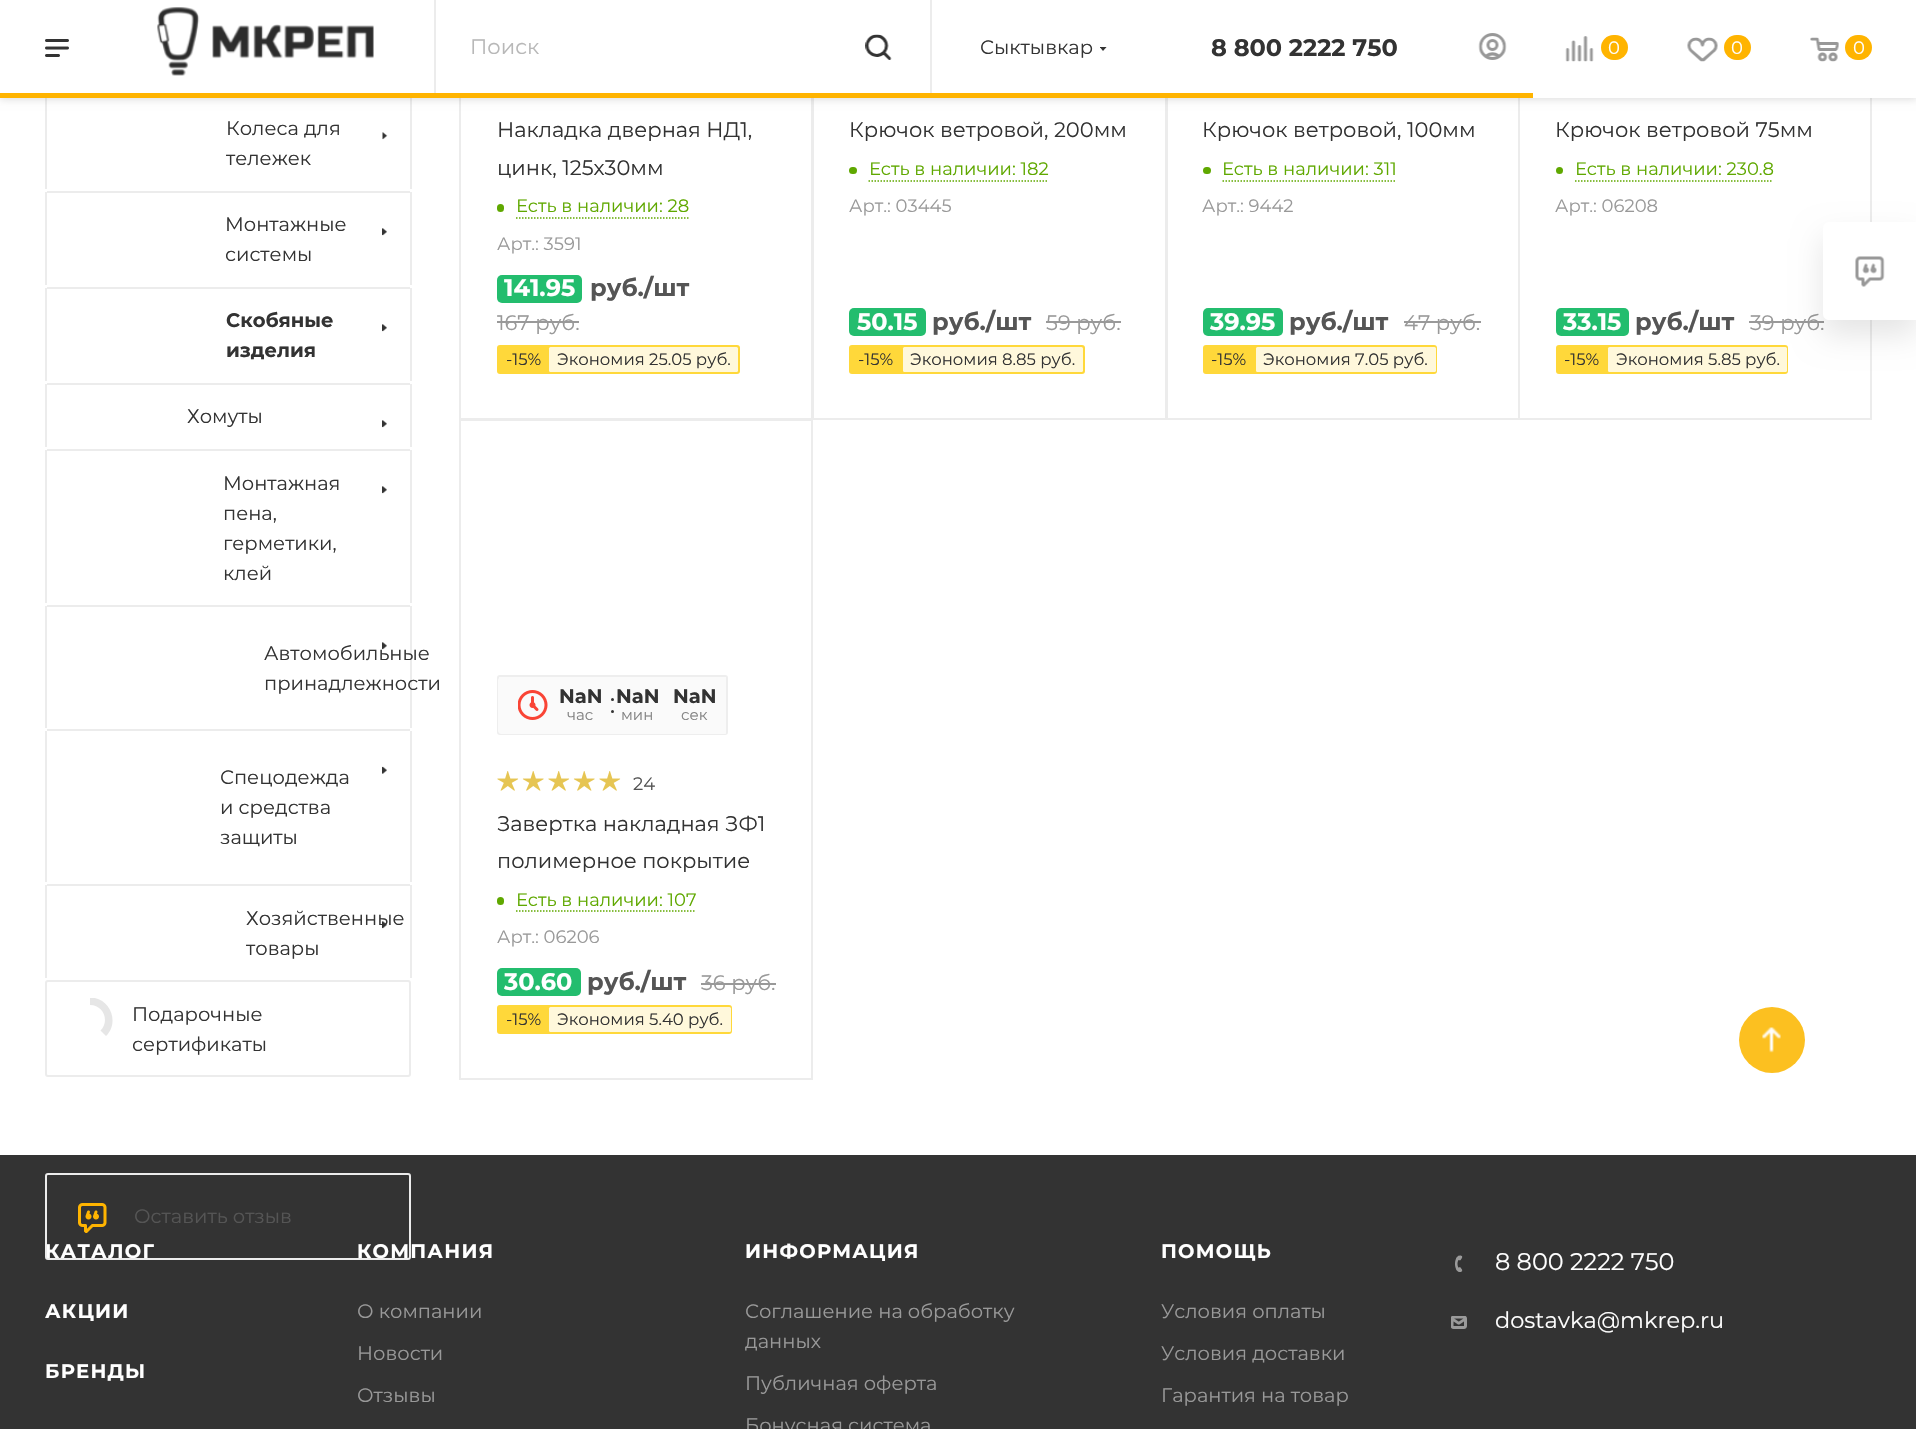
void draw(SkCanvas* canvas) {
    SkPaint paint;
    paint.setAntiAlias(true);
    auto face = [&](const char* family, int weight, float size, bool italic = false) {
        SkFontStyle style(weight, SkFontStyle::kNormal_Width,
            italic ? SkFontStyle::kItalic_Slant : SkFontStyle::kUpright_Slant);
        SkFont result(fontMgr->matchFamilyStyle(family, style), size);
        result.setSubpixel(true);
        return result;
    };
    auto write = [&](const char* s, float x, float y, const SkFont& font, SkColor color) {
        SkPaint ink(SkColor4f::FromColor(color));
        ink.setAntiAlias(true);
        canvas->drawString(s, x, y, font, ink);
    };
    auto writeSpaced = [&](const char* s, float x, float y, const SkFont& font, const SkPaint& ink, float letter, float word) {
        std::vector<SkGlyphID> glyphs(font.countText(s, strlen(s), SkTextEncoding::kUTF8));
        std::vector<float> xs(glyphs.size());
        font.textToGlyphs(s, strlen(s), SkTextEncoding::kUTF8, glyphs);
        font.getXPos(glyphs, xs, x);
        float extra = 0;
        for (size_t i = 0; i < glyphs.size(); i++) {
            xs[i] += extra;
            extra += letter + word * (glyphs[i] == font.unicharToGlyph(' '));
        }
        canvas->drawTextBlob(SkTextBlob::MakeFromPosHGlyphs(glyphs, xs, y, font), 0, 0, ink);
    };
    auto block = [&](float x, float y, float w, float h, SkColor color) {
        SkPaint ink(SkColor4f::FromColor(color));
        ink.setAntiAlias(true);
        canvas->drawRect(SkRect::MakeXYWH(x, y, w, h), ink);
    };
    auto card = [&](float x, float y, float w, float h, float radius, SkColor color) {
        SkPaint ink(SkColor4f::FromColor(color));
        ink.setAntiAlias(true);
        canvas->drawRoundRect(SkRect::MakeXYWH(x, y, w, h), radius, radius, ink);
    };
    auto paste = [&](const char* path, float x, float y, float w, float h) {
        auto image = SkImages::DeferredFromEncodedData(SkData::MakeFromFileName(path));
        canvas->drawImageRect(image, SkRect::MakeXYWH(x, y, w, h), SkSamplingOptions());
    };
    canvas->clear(SK_ColorWHITE);
    block(410, 96, 2, 93, SkColorSetRGB(236, 236, 236));
    block(45, 96, 2, 93, SkColorSetRGB(236, 236, 236));
    paint.setStyle(SkPaint::kStroke_Style);
    paint.setStrokeWidth(2);
    paint.setColor(SkColorSetRGB(236, 236, 236));
    canvas->drawRect(SkRect::MakeXYWH(460, -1, 352, 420), paint);
    canvas->drawRect(SkRect::MakeXYWH(813, -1, 353, 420), paint);
    canvas->drawRect(SkRect::MakeXYWH(1167, -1, 352, 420), paint);
    canvas->drawRect(SkRect::MakeXYWH(1519, -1, 352, 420), paint);
    paint.setStyle(SkPaint::kFill_Style);
    paint.setColor(SkColorSetARGB(36, 0, 0, 0));
    paint.setMaskFilter(SkMaskFilter::MakeBlur(kNormal_SkBlurStyle, 4));
    canvas->drawRect(SkRect::MakeXYWH(0, 2, 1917, 97), paint);
    paint.setMaskFilter(nullptr);
    block(0, 0, 1916, 98, SK_ColorWHITE);
    paste("pic1.png", 45, 39, 24, 18);
    paste("pic2.png", 157, 7, 217, 69);
    block(930, 0, 2, 93, SkColorSetRGB(236, 236, 236));
    block(434, 0, 2, 93, SkColorSetRGB(236, 236, 236));
    auto kFont1 = face("Montserrat", 400, 21);
    write("Поиск", 470, 54, kFont1, SkColorSetRGB(184, 184, 184));
    paste("pic3.png", 865, 34, 27, 26);
    auto kFont2 = face("Montserrat", 400, 19.5f);
    write("Сыктывкар", 980, 54, kFont2, SkColorSetRGB(51, 51, 51));
    canvas->save();
    canvas->clipRect(SkRect::MakeXYWH(1100, 47, 7, 5));
    paint.setColor(SkColorSetRGB(51, 51, 51));
    canvas->drawPath(SkPathBuilder(SkPathFillType::kEvenOdd).moveTo(1099.5f, 46.5f).lineTo(1107, 46.5f).lineTo(1103, 51).close().detach(), paint);
    canvas->restore();
    auto kFont3 = face("Montserrat", 700, 24);
    write("8 800 2222 750", 1211, 56, kFont3, SkColorSetRGB(51, 51, 51));
    paste("pic4.png", 1478, 33, 29, 27);
    paste("pic5.png", 1565, 36, 29, 26);
    card(1601, 35, 27, 25, 12.5f, SkColorSetRGB(255, 180, 0));
    auto kFont4 = face("Montserrat", 400, 18);
    write("0", 1608, 54, kFont4, SK_ColorWHITE);
    paste("pic6.png", 1687, 37, 31, 25);
    card(1724, 35, 27, 25, 12.5f, SkColorSetRGB(255, 180, 0));
    write("0", 1731, 54, kFont4, SK_ColorWHITE);
    paste("pic7.png", 1810, 37, 29, 25);
    card(1845, 35, 27, 25, 12.5f, SkColorSetRGB(255, 180, 0));
    write("0", 1853, 54, kFont4, SK_ColorWHITE);
    block(0, 93, 1533, 5, SkColorSetRGB(255, 180, 0));
    write("Колеса для", 226, 135, kFont2, SkColorSetRGB(51, 51, 51));
    write("тележек", 226, 165, kFont2, SkColorSetRGB(51, 51, 51));
    paste("pic8.png", 382, 132, 6, 8);
    block(47, 191, 363, 2, SkColorSetRGB(236, 236, 236));
    block(410, 192, 2, 93, SkColorSetRGB(236, 236, 236));
    block(45, 192, 2, 93, SkColorSetRGB(236, 236, 236));
    write("Монтажные", 225, 231, kFont2, SkColorSetRGB(51, 51, 51));
    write("системы", 225, 261, kFont2, SkColorSetRGB(51, 51, 51));
    paste("pic9.png", 382, 228, 5, 8);
    block(47, 287, 363, 2, SkColorSetRGB(236, 236, 236));
    block(410, 288, 2, 93, SkColorSetRGB(236, 236, 236));
    block(45, 288, 2, 93, SkColorSetRGB(236, 236, 236));
    auto kFont5 = face("Montserrat", 700, 19.5f);
    write("Скобяные", 226, 327, kFont5, SkColorSetRGB(51, 51, 51));
    write("изделия", 226, 357, kFont5, SkColorSetRGB(51, 51, 51));
    paste("pic9.png", 382, 324, 5, 8);
    block(47, 383, 363, 2, SkColorSetRGB(236, 236, 236));
    block(410, 384, 2, 63, SkColorSetRGB(236, 236, 236));
    block(45, 384, 2, 63, SkColorSetRGB(236, 236, 236));
    write("Хомуты", 187, 423, kFont2, SkColorSetRGB(51, 51, 51));
    paste("pic9.png", 382, 420, 5, 8);
    block(47, 449, 363, 2, SkColorSetRGB(236, 236, 236));
    block(410, 450, 2, 153, SkColorSetRGB(236, 236, 236));
    block(45, 450, 2, 153, SkColorSetRGB(236, 236, 236));
    write("Монтажная", 223, 490, kFont2, SkColorSetRGB(51, 51, 51));
    write("пена,", 223, 520, kFont2, SkColorSetRGB(51, 51, 51));
    write("герметики,", 223, 550, kFont2, SkColorSetRGB(51, 51, 51));
    write("клей", 223, 580, kFont2, SkColorSetRGB(51, 51, 51));
    paste("pic9.png", 382, 486, 5, 8);
    block(47, 605, 363, 2, SkColorSetRGB(236, 236, 236));
    block(410, 606, 2, 122, SkColorSetRGB(236, 236, 236));
    block(45, 606, 2, 122, SkColorSetRGB(236, 236, 236));
    write("Автомобильные", 264, 660, kFont2, SkColorSetRGB(51, 51, 51));
    paste("pic9.png", 382, 642, 5, 8);
    write("принадлежности", 264, 690, kFont2, SkColorSetRGB(51, 51, 51));
    block(47, 729, 363, 2, SkColorSetRGB(236, 236, 236));
    block(410, 731, 2, 151, SkColorSetRGB(236, 236, 236));
    block(45, 731, 2, 151, SkColorSetRGB(236, 236, 236));
    write("Спецодежда", 220, 784, kFont2, SkColorSetRGB(51, 51, 51));
    write("и средства", 220, 814, kFont2, SkColorSetRGB(51, 51, 51));
    write("защиты", 220, 844, kFont2, SkColorSetRGB(51, 51, 51));
    paste("pic10.png", 382, 766, 5, 8);
    block(47, 884, 363, 2, SkColorSetRGB(236, 236, 236));
    block(410, 885, 2, 93, SkColorSetRGB(236, 236, 236));
    block(45, 885, 2, 93, SkColorSetRGB(236, 236, 236));
    write("Хозяйственные", 246, 925, kFont2, SkColorSetRGB(51, 51, 51));
    write("товары", 246, 955, kFont2, SkColorSetRGB(51, 51, 51));
    paste("pic11.png", 382, 921, 5, 8);
    paint.setStyle(SkPaint::kStroke_Style);
    paint.setColor(SkColorSetRGB(236, 236, 236));
    canvas->drawRoundRect(SkRect::MakeXYWH(46, 981, 364, 95), 2, 2, paint);
    canvas->save();
    canvas->clipRect(SkRect::MakeXYWH(68, 998, 45, 45));
    paint.setStyle(SkPaint::kFill_Style);
    paint.setColor(SkColorSetRGB(230, 230, 230));
    canvas->drawPath(SkPathBuilder().moveTo(90, 997.5f).cubicTo(110, 997.5f, 120, 1022, 106, 1036).lineTo(100.5f, 1030.5f).cubicTo(110, 1021, 103.5f, 1005, 90, 1005).close().detach(), paint);
    canvas->restore();
    write("Подарочные", 132, 1021, kFont2, SkColorSetRGB(51, 51, 51));
    write("сертификаты", 132, 1051, kFont2, SkColorSetRGB(51, 51, 51));
    block(0, 1155, 1916, 274, SkColorSetRGB(51, 51, 51));
    paint.setColor(SK_ColorWHITE);
    writeSpaced("КАТАЛОГ", 45, 1258, kFont5, paint, 1.25f, 0);
    writeSpaced("КОМПАНИЯ", 357, 1258, kFont5, paint, 1.25f, 0);
    paint.setStyle(SkPaint::kStroke_Style);
    paint.setColor(SkColorSetRGB(236, 236, 236));
    canvas->drawRoundRect(SkRect::MakeXYWH(46, 1174, 364, 85), 2, 2, paint);
    paste("pic12.png", 78, 1203, 29, 30);
    write("Оставить отзыв", 134, 1223, kFont2, SkColorSetRGB(85, 85, 85));
    write("Накладка дверная НД1,", 497, 137, kFont1, SkColorSetRGB(51, 51, 51));
    write("цинк, 125х30мм", 497, 175, kFont1, SkColorSetRGB(51, 51, 51));
    card(497, 204, 7, 8, 3.5f, SkColorSetRGB(95, 168, 0));
    paint.setStrokeWidth(1.5f);
    paint.setColor(SkColorSetRGB(95, 168, 0));
    paint.setPathEffect(SkDashPathEffect::Make({{1.5f, 1.5f}}, 0));
    canvas->drawPath(SkPathBuilder().moveTo(516, 218).lineTo(688.5f, 218).detach(), paint);
    paint.setPathEffect(nullptr);
    write("Есть в наличии: 28", 516, 212, kFont4, SkColorSetRGB(95, 168, 0));
    write("Арт.: 3591", 497, 250, kFont4, SkColorSetRGB(153, 153, 153));
    card(497, 275, 85, 28, 5, SkColorSetRGB(35, 189, 110));
    write("141.95", 504, 296, kFont3, SK_ColorWHITE);
    write("руб./шт", 590, 296, kFont3, SkColorSetRGB(85, 85, 85));
    write("167 руб.", 497, 330, kFont1, SkColorSetRGB(153, 153, 153));
    block(497, 321, 82, 2, SkColorSetRGB(153, 153, 153));
    card(497, 345, 243, 29, 3, SkColorSetRGB(255, 216, 58));
    auto kFont6 = face("Montserrat", 400, 16.5f);
    write("-15%", 506, 365, kFont6, SkColorSetRGB(51, 51, 51));
    card(549, 347, 189, 25, 1.5f, SkColorSetRGB(255, 248, 219));
    write("Экономия 25.05 руб.", 557, 365, kFont6, SkColorSetRGB(51, 51, 51));
    write("Крючок ветровой, 200мм", 849, 137, kFont1, SkColorSetRGB(51, 51, 51));
    card(849, 167, 8, 7, 3.5f, SkColorSetRGB(95, 168, 0));
    paint.setPathEffect(SkDashPathEffect::Make({{1.5f, 1.5f}}, 0));
    canvas->drawPath(SkPathBuilder().moveTo(868.5f, 181).lineTo(1048.5f, 181).detach(), paint);
    paint.setPathEffect(nullptr);
    write("Есть в наличии: 182", 869, 175, kFont4, SkColorSetRGB(95, 168, 0));
    write("Арт.: 03445", 849, 212, kFont4, SkColorSetRGB(153, 153, 153));
    card(849, 308, 77, 28, 5, SkColorSetRGB(35, 189, 110));
    write("50.15", 857, 330, kFont3, SK_ColorWHITE);
    write("руб./шт", 932, 330, kFont3, SkColorSetRGB(85, 85, 85));
    write("59 руб.", 1046, 330, kFont1, SkColorSetRGB(153, 153, 153));
    block(1046, 321, 75, 2, SkColorSetRGB(153, 153, 153));
    card(849, 345, 236, 29, 3, SkColorSetRGB(255, 216, 58));
    write("-15%", 858, 365, kFont6, SkColorSetRGB(51, 51, 51));
    card(903, 347, 180, 25, 1.5f, SkColorSetRGB(255, 248, 219));
    write("Экономия 8.85 руб.", 910, 365, kFont6, SkColorSetRGB(51, 51, 51));
    write("Крючок ветровой, 100мм", 1202, 137, kFont1, SkColorSetRGB(51, 51, 51));
    card(1203, 167, 8, 7, 3.5f, SkColorSetRGB(95, 168, 0));
    paint.setPathEffect(SkDashPathEffect::Make({{1.5f, 1.5f}}, 0));
    canvas->drawPath(SkPathBuilder().moveTo(1222.5f, 181).lineTo(1396.5f, 181).detach(), paint);
    paint.setPathEffect(nullptr);
    write("Есть в наличии: 311", 1222, 175, kFont4, SkColorSetRGB(95, 168, 0));
    write("Арт.: 9442", 1202, 212, kFont4, SkColorSetRGB(153, 153, 153));
    card(1203, 308, 80, 28, 5, SkColorSetRGB(35, 189, 110));
    write("39.95", 1210, 330, kFont3, SK_ColorWHITE);
    write("руб./шт", 1289, 330, kFont3, SkColorSetRGB(85, 85, 85));
    write("47 руб.", 1404, 330, kFont1, SkColorSetRGB(153, 153, 153));
    block(1404, 321, 77, 2, SkColorSetRGB(153, 153, 153));
    card(1203, 345, 234, 29, 3, SkColorSetRGB(255, 216, 58));
    write("-15%", 1211, 365, kFont6, SkColorSetRGB(51, 51, 51));
    card(1256, 347, 180, 25, 1.5f, SkColorSetRGB(255, 248, 219));
    write("Экономия 7.05 руб.", 1263, 365, kFont6, SkColorSetRGB(51, 51, 51));
    write("Крючок ветровой 75мм", 1555, 137, kFont1, SkColorSetRGB(51, 51, 51));
    paint.setStyle(SkPaint::kFill_Style);
    canvas->drawCircle(1559.5f, 170.5f, 3.5f, paint);
    paint.setStyle(SkPaint::kStroke_Style);
    paint.setPathEffect(SkDashPathEffect::Make({{1.5f, 1.5f}}, 0));
    canvas->drawPath(SkPathBuilder().moveTo(1575, 181).lineTo(1773, 181).detach(), paint);
    paint.setPathEffect(nullptr);
    write("Есть в наличии: 230.8", 1575, 175, kFont4, SkColorSetRGB(95, 168, 0));
    write("Арт.: 06208", 1555, 212, kFont4, SkColorSetRGB(153, 153, 153));
    card(1556, 308, 73, 28, 5, SkColorSetRGB(35, 189, 110));
    write("33.15", 1563, 330, kFont3, SK_ColorWHITE);
    write("руб./шт", 1635, 330, kFont3, SkColorSetRGB(85, 85, 85));
    write("39 руб.", 1750, 330, kFont1, SkColorSetRGB(153, 153, 153));
    block(1749, 321, 75, 2, SkColorSetRGB(153, 153, 153));
    card(1556, 345, 232, 29, 3, SkColorSetRGB(255, 216, 58));
    write("-15%", 1564, 365, kFont6, SkColorSetRGB(51, 51, 51));
    card(1608, 347, 179, 25, 1.5f, SkColorSetRGB(255, 248, 219));
    write("Экономия 5.85 руб.", 1616, 365, kFont6, SkColorSetRGB(51, 51, 51));
    paint.setStrokeWidth(2);
    paint.setColor(SkColorSetRGB(236, 236, 236));
    canvas->drawRect(SkRect::MakeXYWH(460, 420, 352, 659), paint);
    paint.setColor(SkColorSetRGB(238, 238, 238));
    canvas->drawRoundRect(SkRect::MakeXYWH(498, 676, 229, 58), 2, 2, paint);
    paint.setStyle(SkPaint::kFill_Style);
    paint.setColor(SkColorSetRGB(250, 250, 250));
    canvas->drawPath(SkPathBuilder().moveTo(501, 677).lineTo(554, 677).lineTo(554, 734).lineTo(501, 734).cubicTo(499.5f, 734, 498, 732.5f, 498, 731).lineTo(498, 680).cubicTo(498, 678.5f, 499.5f, 677, 501, 677).close().detach(), paint);
    paste("pic13.png", 518, 690, 30, 30);
    canvas->drawPath(SkPathBuilder().moveTo(554, 677).lineTo(724.5f, 677).cubicTo(725.5f, 677, 726, 677.5f, 726, 678.5f).lineTo(726, 732.5f).cubicTo(726, 733.5f, 725.5f, 734, 724.5f, 734).lineTo(554, 734).close().detach(), paint);
    write("NaN", 559, 703, kFont5, SkColorSetRGB(51, 51, 51));
    paint.setColor(SkColorSetRGB(51, 51, 51));
    canvas->drawCircle(612.5f, 699.5f, 1.5f, paint);
    canvas->drawCircle(612.5f, 711.5f, 1.5f, paint);
    auto kFont7 = face("Montserrat", 400, 15);
    write("час", 567, 720, kFont7, SkColorSetRGB(131, 131, 131));
    write("NaN", 616, 703, kFont5, SkColorSetRGB(51, 51, 51));
    write("мин", 621, 720, kFont7, SkColorSetRGB(131, 131, 131));
    paint.setColor(SkColorSetRGB(250, 250, 250));
    canvas->drawPath(SkPathBuilder().moveTo(669, 677).lineTo(724.5f, 677).cubicTo(725.5f, 677, 726, 677.5f, 726, 678.5f).lineTo(726, 732.5f).cubicTo(726, 733.5f, 725.5f, 734, 724.5f, 734).lineTo(669, 734).close().detach(), paint);
    write("NaN", 673, 703, kFont5, SkColorSetRGB(51, 51, 51));
    write("сек", 681, 720, kFont7, SkColorSetRGB(131, 131, 131));
    paste("pic14.png", 497, 771, 22, 20);
    paste("pic15.png", 522, 771, 22, 20);
    paste("pic14.png", 548, 771, 22, 20);
    paste("pic15.png", 573, 771, 22, 20);
    paste("pic14.png", 599, 771, 22, 20);
    write("24", 633, 790, kFont4, SkColorSetRGB(85, 85, 85));
    write("Завертка накладная ЗФ1", 497, 831, kFont1, SkColorSetRGB(51, 51, 51));
    write("полимерное покрытие", 497, 868, kFont1, SkColorSetRGB(51, 51, 51));
    card(497, 897, 7, 8, 3.5f, SkColorSetRGB(95, 168, 0));
    paint.setStyle(SkPaint::kStroke_Style);
    paint.setStrokeWidth(1.5f);
    paint.setColor(SkColorSetRGB(95, 168, 0));
    paint.setPathEffect(SkDashPathEffect::Make({{1.5f, 1.5f}}, 0));
    canvas->drawPath(SkPathBuilder().moveTo(516, 911).lineTo(696, 911).detach(), paint);
    paint.setPathEffect(nullptr);
    write("Есть в наличии: 107", 516, 906, kFont4, SkColorSetRGB(95, 168, 0));
    write("Арт.: 06206", 497, 943, kFont4, SkColorSetRGB(153, 153, 153));
    card(497, 968, 84, 28, 5, SkColorSetRGB(35, 189, 110));
    write("30.60", 504, 990, kFont3, SK_ColorWHITE);
    write("руб./шт", 587, 990, kFont3, SkColorSetRGB(85, 85, 85));
    write("36 руб.", 701, 990, kFont1, SkColorSetRGB(153, 153, 153));
    block(701, 983, 75, 2, SkColorSetRGB(153, 153, 153));
    card(497, 1005, 235, 29, 3, SkColorSetRGB(255, 216, 58));
    write("-15%", 506, 1025, kFont6, SkColorSetRGB(51, 51, 51));
    card(549, 1007, 182, 25, 1.5f, SkColorSetRGB(255, 248, 219));
    write("Экономия 5.40 руб.", 557, 1025, kFont6, SkColorSetRGB(51, 51, 51));
    paint.setStyle(SkPaint::kFill_Style);
    paint.setColor(SkColorSetARGB(26, 0, 0, 0));
    paint.setMaskFilter(SkMaskFilter::MakeBlur(kNormal_SkBlurStyle, 15));
    canvas->drawRoundRect(SkRect::MakeXYWH(1823, 237, 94, 98), 6, 6, paint);
    paint.setMaskFilter(nullptr);
    paint.setColor(SK_ColorWHITE);
    canvas->drawPath(SkPathBuilder().moveTo(1829, 222).lineTo(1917, 222).lineTo(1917, 320).lineTo(1829, 320).cubicTo(1825.5f, 320, 1823, 317.5f, 1823, 314).lineTo(1823, 228).cubicTo(1823, 224.5f, 1825.5f, 222, 1829, 222).close().detach(), paint);
    paste("pic16.png", 1855, 256, 30, 31);
    paint.setColor(SkColorSetRGB(252, 192, 32));
    canvas->drawCircle(1772, 1040, 33, paint);
    paste("pic17.png", 1762, 1027, 19, 26);
    paint.setColor(SK_ColorWHITE);
    writeSpaced("АКЦИИ", 45, 1318, kFont5, paint, 1.25f, 0);
    writeSpaced("БРЕНДЫ", 45, 1378, kFont5, paint, 1.25f, 0);
    write("О компании", 357, 1318, kFont2, SkColorSetRGB(153, 153, 153));
    write("Новости", 357, 1360, kFont2, SkColorSetRGB(153, 153, 153));
    write("Отзывы", 357, 1402, kFont2, SkColorSetRGB(153, 153, 153));
    writeSpaced("ИНФОРМАЦИЯ", 745, 1258, kFont5, paint, 1.25f, 0);
    write("Соглашение на обработку", 745, 1318, kFont2, SkColorSetRGB(153, 153, 153));
    write("данных", 745, 1348, kFont2, SkColorSetRGB(153, 153, 153));
    write("Публичная оферта", 745, 1390, kFont2, SkColorSetRGB(153, 153, 153));
    write("Бонусная система", 745, 1432, kFont2, SkColorSetRGB(153, 153, 153));
    writeSpaced("ПОМОЩЬ", 1161, 1258, kFont5, paint, 1.25f, 0);
    write("Условия оплаты", 1161, 1318, kFont2, SkColorSetRGB(153, 153, 153));
    write("Условия доставки", 1161, 1360, kFont2, SkColorSetRGB(153, 153, 153));
    write("Гарантия на товар", 1161, 1402, kFont2, SkColorSetRGB(153, 153, 153));
    paste("pic18.png", 1455, 1255, 8, 17);
    auto kFont8 = face("Montserrat", 400, 24);
    write("8 800 2222 750", 1495, 1270, kFont8, SK_ColorWHITE);
    paste("pic19.png", 1451, 1316, 16, 13);
    auto kFont9 = face("Montserrat", 400, 22.5f);
    write("dostavka@mkrep.ru", 1495, 1328, kFont9, SK_ColorWHITE);
}
